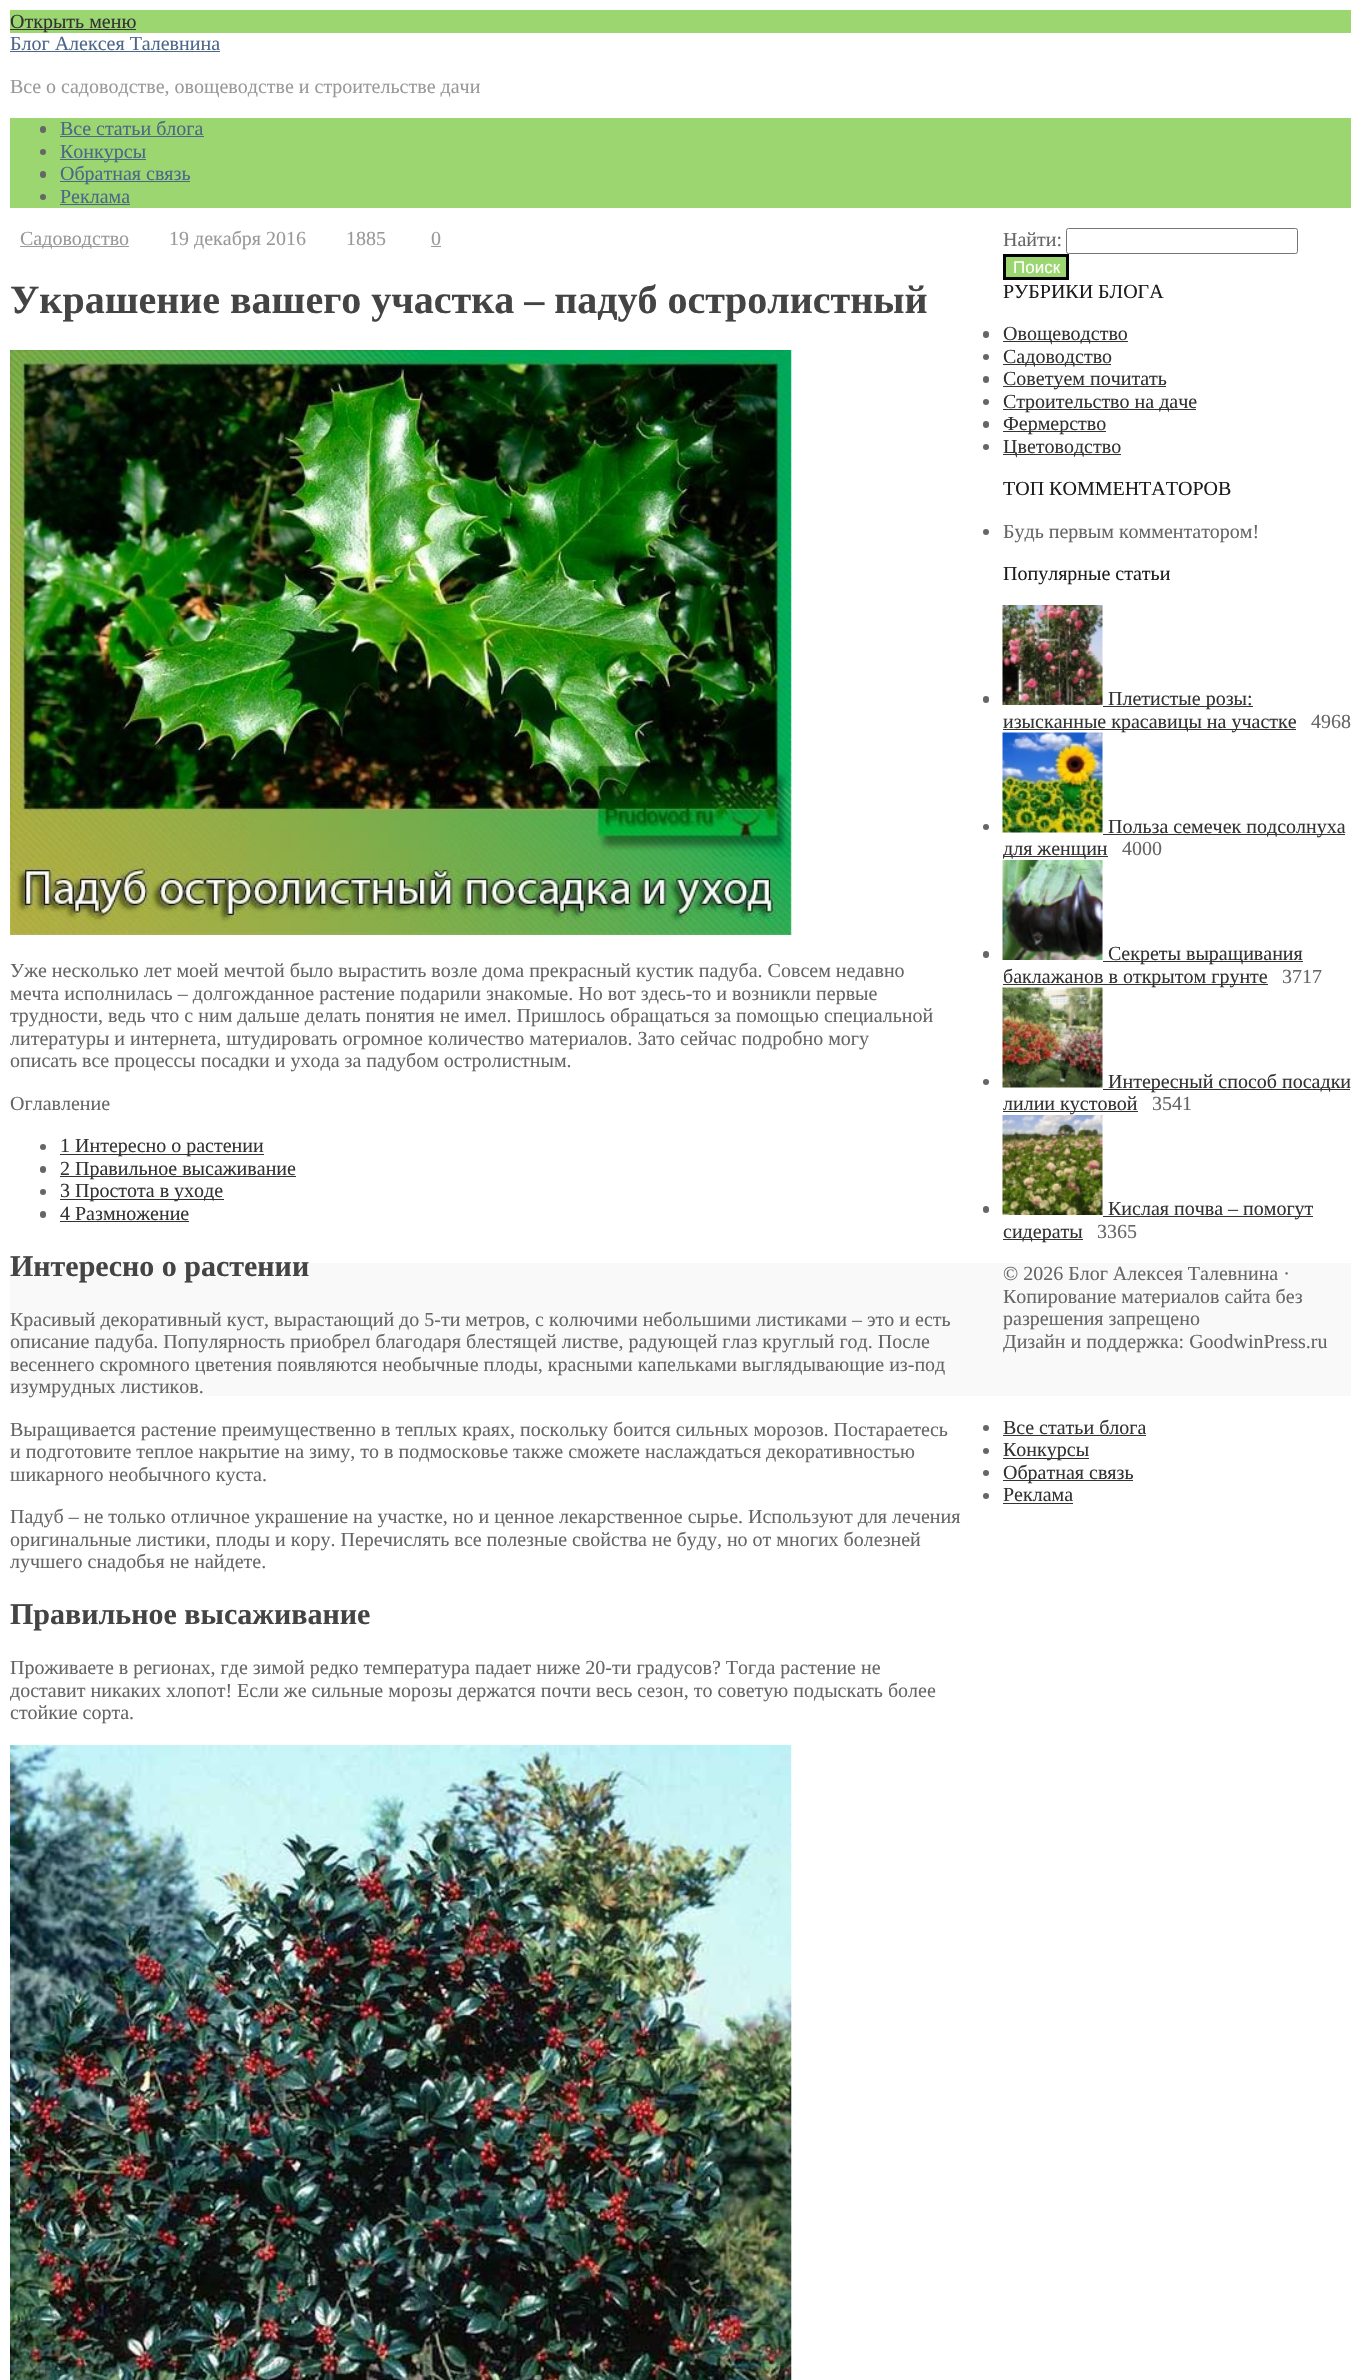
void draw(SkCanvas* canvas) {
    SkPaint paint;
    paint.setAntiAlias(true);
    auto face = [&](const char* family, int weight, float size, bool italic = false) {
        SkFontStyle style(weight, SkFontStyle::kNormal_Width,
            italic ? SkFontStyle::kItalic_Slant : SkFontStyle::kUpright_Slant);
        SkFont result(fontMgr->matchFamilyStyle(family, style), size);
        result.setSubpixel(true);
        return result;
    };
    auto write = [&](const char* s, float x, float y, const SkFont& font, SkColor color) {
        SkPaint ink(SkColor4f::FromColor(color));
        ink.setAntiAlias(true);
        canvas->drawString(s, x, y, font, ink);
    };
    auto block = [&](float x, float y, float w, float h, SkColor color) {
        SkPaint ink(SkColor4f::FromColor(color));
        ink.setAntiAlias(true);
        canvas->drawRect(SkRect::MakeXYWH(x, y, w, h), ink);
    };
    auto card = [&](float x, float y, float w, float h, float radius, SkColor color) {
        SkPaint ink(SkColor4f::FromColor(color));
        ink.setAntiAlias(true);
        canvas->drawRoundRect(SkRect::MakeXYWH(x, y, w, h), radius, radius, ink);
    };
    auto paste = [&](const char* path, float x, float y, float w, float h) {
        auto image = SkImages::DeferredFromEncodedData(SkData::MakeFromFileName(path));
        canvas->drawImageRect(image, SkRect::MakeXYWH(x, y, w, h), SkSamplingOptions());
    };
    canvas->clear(SK_ColorWHITE);
    block(10, 10, 1341, 23, SkColorSetRGB(155, 214, 113));
    block(10, 29, 126, 1, SkColorSetRGB(51, 51, 51));
    auto kFont1 = face("Liberation Serif", 400, 20);
    write("Открыть меню", 10, 28, kFont1, SkColorSetRGB(51, 51, 51));
    write("Блог Алексея Талевнина", 10, 50, kFont1, SkColorSetRGB(77, 103, 137));
    block(10, 51, 210, 1, SkColorSetRGB(77, 103, 137));
    write("Все о садоводстве, овощеводстве и строительстве дачи", 10, 93, kFont1, SkColorSetRGB(153, 153, 153));
    block(10, 118, 1341, 90, SkColorSetRGB(155, 214, 113));
    card(40, 126, 6, 7, 3, SkColorSetRGB(102, 102, 102));
    write("Все статьи блога", 60, 135, kFont1, SkColorSetRGB(77, 103, 137));
    block(60, 136, 144, 1, SkColorSetRGB(77, 103, 137));
    paint.setColor(SkColorSetRGB(102, 102, 102));
    canvas->drawCircle(43, 152, 3, paint);
    block(60, 159, 86, 1, SkColorSetRGB(77, 103, 137));
    write("Конкурсы", 60, 158, kFont1, SkColorSetRGB(77, 103, 137));
    card(40, 171, 6, 7, 3, SkColorSetRGB(102, 102, 102));
    block(60, 181, 130, 1, SkColorSetRGB(77, 103, 137));
    write("Обратная связь", 60, 180, kFont1, SkColorSetRGB(77, 103, 137));
    canvas->drawCircle(43, 197, 3, paint);
    write("Реклама", 60, 203, kFont1, SkColorSetRGB(77, 103, 137));
    block(60, 204, 70, 1, SkColorSetRGB(77, 103, 137));
    block(20, 246, 109, 1, SkColorSetRGB(153, 153, 153));
    write("Садоводство", 20, 245, kFont1, SkColorSetRGB(153, 153, 153));
    write("19 декабря 2016", 169, 245, kFont1, SkColorSetRGB(153, 153, 153));
    write("1885", 346, 245, kFont1, SkColorSetRGB(153, 153, 153));
    write("0", 431, 245, kFont1, SkColorSetRGB(153, 153, 153));
    block(431, 246, 10, 1, SkColorSetRGB(153, 153, 153));
    auto kFont2 = face("Liberation Serif", 700, 40);
    write("Украшение вашего участка – падуб остролистный", 10, 313, kFont2, SkColorSetRGB(68, 68, 68));
    paste("pic1.png", 10, 350, 782, 585);
    write("Уже несколько лет моей мечтой было вырастить возле дома прекрасный кустик падуба. Совсем недавно", 10, 977, kFont1, SkColorSetRGB(102, 102, 102));
    write("мечта исполнилась – долгожданное растение подарили знакомые. Но вот здесь-то и возникли первые", 10, 1000, kFont1, SkColorSetRGB(102, 102, 102));
    write("трудности, ведь что с ним дальше делать понятия не имел. Пришлось обращаться за помощью специальной", 10, 1022, kFont1, SkColorSetRGB(102, 102, 102));
    write("литературы и интернета, штудировать огромное количество материалов. Зато сейчас подробно могу", 10, 1045, kFont1, SkColorSetRGB(102, 102, 102));
    write("описать все процессы посадки и ухода за падубом остролистным.", 10, 1067, kFont1, SkColorSetRGB(102, 102, 102));
    write("Оглавление", 10, 1110, kFont1, SkColorSetRGB(102, 102, 102));
    canvas->drawCircle(43, 1147, 3, paint);
    block(60, 1154, 204, 1, SkColorSetRGB(51, 51, 51));
    write("1 Интересно о растении", 60, 1152, kFont1, SkColorSetRGB(51, 51, 51));
    card(40, 1166, 6, 7, 3, SkColorSetRGB(102, 102, 102));
    block(60, 1176, 236, 1, SkColorSetRGB(51, 51, 51));
    write("2 Правильное высаживание", 60, 1175, kFont1, SkColorSetRGB(51, 51, 51));
    canvas->drawCircle(43, 1192, 3, paint);
    block(60, 1199, 164, 1, SkColorSetRGB(51, 51, 51));
    write("3 Простота в уходе", 60, 1197, kFont1, SkColorSetRGB(51, 51, 51));
    card(40, 1211, 6, 7, 3, SkColorSetRGB(102, 102, 102));
    write("4 Размножение", 60, 1220, kFont1, SkColorSetRGB(51, 51, 51));
    block(60, 1221, 129, 1, SkColorSetRGB(51, 51, 51));
    block(10, 1263, 1341, 133, SkColorSetRGB(249, 249, 249));
    auto kFont3 = face("Liberation Serif", 700, 30);
    write("Интересно о растении", 10, 1276, kFont3, SkColorSetRGB(68, 68, 68));
    write("Красивый декоративный куст, вырастающий до 5-ти метров, с колючими небольшими листиками – это и есть", 10, 1326, kFont1, SkColorSetRGB(102, 102, 102));
    write("описание падуба. Популярность приобрел благодаря блестящей листве, радующей глаз круглый год. После", 10, 1348, kFont1, SkColorSetRGB(102, 102, 102));
    write("весеннего скромного цветения появляются необычные плоды, красными капельками выглядывающие из-под", 10, 1371, kFont1, SkColorSetRGB(102, 102, 102));
    write("изумрудных листиков.", 10, 1393, kFont1, SkColorSetRGB(102, 102, 102));
    write("Выращивается растение преимущественно в теплых краях, поскольку боится сильных морозов. Постараетесь", 10, 1436, kFont1, SkColorSetRGB(102, 102, 102));
    write("и подготовите теплое накрытие на зиму, то в подмосковье также сможете наслаждаться декоративностью", 10, 1458, kFont1, SkColorSetRGB(102, 102, 102));
    write("шикарного необычного куста.", 10, 1481, kFont1, SkColorSetRGB(102, 102, 102));
    write("Падуб – не только отличное украшение на участке, но и ценное лекарственное сырье. Используют для лечения", 10, 1523, kFont1, SkColorSetRGB(102, 102, 102));
    write("оригинальные листики, плоды и кору. Перечислять все полезные свойства не буду, но от многих болезней", 10, 1546, kFont1, SkColorSetRGB(102, 102, 102));
    write("лучшего снадобья не найдете.", 10, 1568, kFont1, SkColorSetRGB(102, 102, 102));
    write("Правильное высаживание", 10, 1624, kFont3, SkColorSetRGB(68, 68, 68));
    write("Проживаете в регионах, где зимой редко температура падает ниже 20-ти градусов? Тогда растение не", 10, 1674, kFont1, SkColorSetRGB(102, 102, 102));
    write("доставит никаких хлопот! Если же сильные морозы держатся почти весь сезон, то советую подыскать более", 10, 1697, kFont1, SkColorSetRGB(102, 102, 102));
    write("стойкие сорта.", 10, 1719, kFont1, SkColorSetRGB(102, 102, 102));
    paste("pic2.png", 10, 1745, 782, 635);
    write("Найти:", 1003, 246, kFont1, SkColorSetRGB(102, 102, 102));
    paint.setStyle(SkPaint::kStroke_Style);
    paint.setStrokeWidth(1);
    paint.setColor(SkColorSetRGB(118, 118, 118));
    canvas->drawRoundRect(SkRect::MakeXYWH(1066.5f, 228.5f, 231, 25), 2, 2, paint);
    paint.setStyle(SkPaint::kFill_Style);
    paint.setColor(SkColorSetRGB(155, 214, 113));
    canvas->drawRect(SkRect::MakeXYWH(1004.5f, 255.5f, 63, 23), paint);
    paint.setStyle(SkPaint::kStroke_Style);
    paint.setStrokeWidth(3);
    paint.setColor(SK_ColorBLACK);
    canvas->drawRect(SkRect::MakeXYWH(1004.5f, 255.5f, 63, 23), paint);
    auto kFont4 = face("Liberation Sans", 400, 17);
    write("Поиск", 1013, 273, kFont4, SK_ColorWHITE);
    write("РУБРИКИ БЛОГА", 1003, 298, kFont1, SkColorSetRGB(29, 29, 29));
    card(983, 331, 6, 7, 3, SkColorSetRGB(102, 102, 102));
    block(1003, 341, 125, 1, SkColorSetRGB(51, 51, 51));
    write("Овощеводство", 1003, 340, kFont1, SkColorSetRGB(51, 51, 51));
    paint.setStyle(SkPaint::kFill_Style);
    paint.setColor(SkColorSetRGB(102, 102, 102));
    canvas->drawCircle(986, 357, 3, paint);
    block(1003, 364, 108, 1, SkColorSetRGB(51, 51, 51));
    write("Садоводство", 1003, 363, kFont1, SkColorSetRGB(51, 51, 51));
    card(983, 376, 6, 7, 3, SkColorSetRGB(102, 102, 102));
    block(1003, 386, 163, 1, SkColorSetRGB(51, 51, 51));
    write("Советуем почитать", 1003, 385, kFont1, SkColorSetRGB(51, 51, 51));
    canvas->drawCircle(986, 402, 3, paint);
    block(1003, 409, 193, 1, SkColorSetRGB(51, 51, 51));
    write("Строительство на даче", 1003, 408, kFont1, SkColorSetRGB(51, 51, 51));
    card(983, 421, 6, 7, 3, SkColorSetRGB(102, 102, 102));
    block(1003, 431, 103, 1, SkColorSetRGB(51, 51, 51));
    write("Фермерство", 1003, 430, kFont1, SkColorSetRGB(51, 51, 51));
    canvas->drawCircle(986, 447, 3, paint);
    block(1003, 454, 118, 1, SkColorSetRGB(51, 51, 51));
    write("Цветоводство", 1003, 453, kFont1, SkColorSetRGB(51, 51, 51));
    write("ТОП КОММЕНТАТОРОВ", 1003, 495, kFont1, SkColorSetRGB(29, 29, 29));
    canvas->drawCircle(986, 532, 3, paint);
    write("Будь первым комментатором!", 1003, 538, kFont1, SkColorSetRGB(102, 102, 102));
    write("Популярные статьи", 1003, 580, kFont1, SkColorSetRGB(29, 29, 29));
    card(983, 696, 6, 7, 3, SkColorSetRGB(102, 102, 102));
    paste("pic3.png", 1002, 605, 101, 100);
    block(1103, 706, 150, 1, SkColorSetRGB(51, 51, 51));
    write("Плетистые розы:", 1108, 705, kFont1, SkColorSetRGB(51, 51, 51));
    block(1003, 729, 293, 1, SkColorSetRGB(51, 51, 51));
    write("изысканные красавицы на участке", 1003, 728, kFont1, SkColorSetRGB(51, 51, 51));
    write("4968", 1311, 728, kFont1, SkColorSetRGB(102, 102, 102));
    canvas->drawCircle(986, 827, 3, paint);
    paste("pic4.png", 1002, 732, 101, 101);
    block(1103, 834, 242, 1, SkColorSetRGB(51, 51, 51));
    write("Польза семечек подсолнуха", 1108, 833, kFont1, SkColorSetRGB(51, 51, 51));
    block(1003, 856, 105, 1, SkColorSetRGB(51, 51, 51));
    write("для женщин", 1003, 855, kFont1, SkColorSetRGB(51, 51, 51));
    write("4000", 1122, 855, kFont1, SkColorSetRGB(102, 102, 102));
    card(983, 951, 6, 7, 3, SkColorSetRGB(102, 102, 102));
    paste("pic5.png", 1002, 860, 101, 100);
    block(1103, 961, 200, 1, SkColorSetRGB(51, 51, 51));
    write("Секреты выращивания", 1108, 960, kFont1, SkColorSetRGB(51, 51, 51));
    block(1003, 984, 265, 1, SkColorSetRGB(51, 51, 51));
    write("баклажанов в открытом грунте", 1003, 983, kFont1, SkColorSetRGB(51, 51, 51));
    write("3717", 1282, 983, kFont1, SkColorSetRGB(102, 102, 102));
    canvas->drawCircle(986, 1082, 3, paint);
    paste("pic6.png", 1002, 987, 101, 101);
    block(1103, 1089, 247, 1, SkColorSetRGB(51, 51, 51));
    write("Интересный способ посадки", 1108, 1088, kFont1, SkColorSetRGB(51, 51, 51));
    block(1003, 1111, 135, 1, SkColorSetRGB(51, 51, 51));
    write("лилии кустовой", 1003, 1110, kFont1, SkColorSetRGB(51, 51, 51));
    write("3541", 1152, 1110, kFont1, SkColorSetRGB(102, 102, 102));
    card(983, 1206, 6, 7, 3, SkColorSetRGB(102, 102, 102));
    paste("pic7.png", 1002, 1115, 101, 100);
    block(1103, 1216, 210, 1, SkColorSetRGB(51, 51, 51));
    write("Кислая почва – помогут", 1108, 1215, kFont1, SkColorSetRGB(51, 51, 51));
    block(1003, 1239, 80, 1, SkColorSetRGB(51, 51, 51));
    write("сидераты", 1003, 1238, kFont1, SkColorSetRGB(51, 51, 51));
    write("3365", 1097, 1238, kFont1, SkColorSetRGB(102, 102, 102));
    write("© 2026 Блог Алексея Талевнина ·", 1003, 1280, kFont1, SkColorSetRGB(102, 102, 102));
    write("Копирование материалов сайта без", 1003, 1303, kFont1, SkColorSetRGB(102, 102, 102));
    write("разрешения запрещено", 1003, 1325, kFont1, SkColorSetRGB(102, 102, 102));
    write("Дизайн и поддержка: GoodwinPress.ru", 1003, 1348, kFont1, SkColorSetRGB(102, 102, 102));
    canvas->drawCircle(986, 1428, 3, paint);
    write("Все статьи блога", 1003, 1434, kFont1, SkColorSetRGB(51, 51, 51));
    block(1003, 1435, 143, 1, SkColorSetRGB(51, 51, 51));
    canvas->drawCircle(986, 1451, 3, paint);
    block(1003, 1458, 86, 1, SkColorSetRGB(51, 51, 51));
    write("Конкурсы", 1003, 1456, kFont1, SkColorSetRGB(51, 51, 51));
    canvas->drawCircle(986, 1473, 3, paint);
    block(1003, 1480, 130, 1, SkColorSetRGB(51, 51, 51));
    write("Обратная связь", 1003, 1479, kFont1, SkColorSetRGB(51, 51, 51));
    canvas->drawCircle(986, 1496, 3, paint);
    write("Реклама", 1003, 1501, kFont1, SkColorSetRGB(51, 51, 51));
    block(1003, 1503, 70, 1, SkColorSetRGB(51, 51, 51));
}
